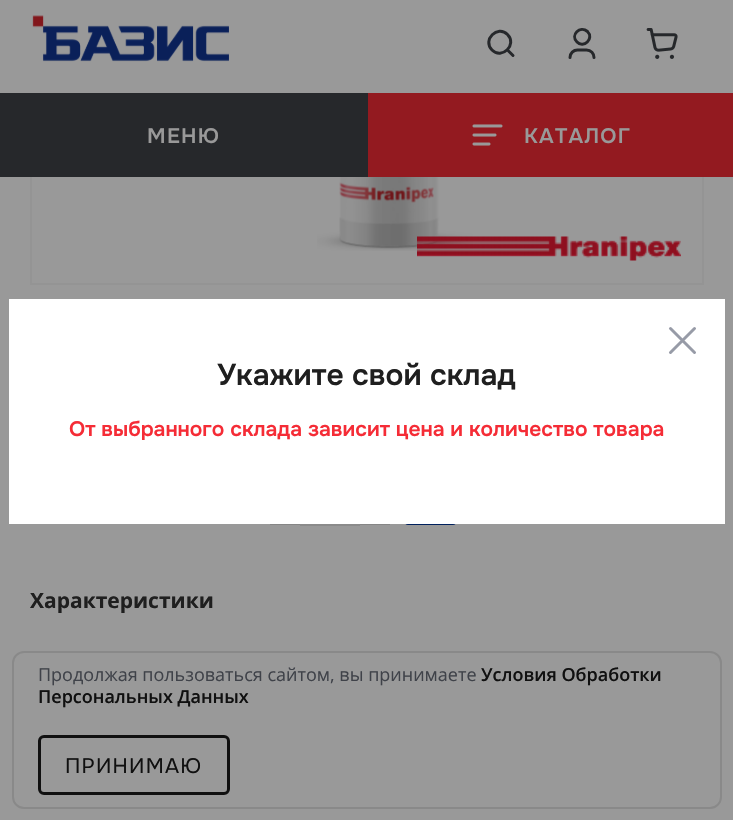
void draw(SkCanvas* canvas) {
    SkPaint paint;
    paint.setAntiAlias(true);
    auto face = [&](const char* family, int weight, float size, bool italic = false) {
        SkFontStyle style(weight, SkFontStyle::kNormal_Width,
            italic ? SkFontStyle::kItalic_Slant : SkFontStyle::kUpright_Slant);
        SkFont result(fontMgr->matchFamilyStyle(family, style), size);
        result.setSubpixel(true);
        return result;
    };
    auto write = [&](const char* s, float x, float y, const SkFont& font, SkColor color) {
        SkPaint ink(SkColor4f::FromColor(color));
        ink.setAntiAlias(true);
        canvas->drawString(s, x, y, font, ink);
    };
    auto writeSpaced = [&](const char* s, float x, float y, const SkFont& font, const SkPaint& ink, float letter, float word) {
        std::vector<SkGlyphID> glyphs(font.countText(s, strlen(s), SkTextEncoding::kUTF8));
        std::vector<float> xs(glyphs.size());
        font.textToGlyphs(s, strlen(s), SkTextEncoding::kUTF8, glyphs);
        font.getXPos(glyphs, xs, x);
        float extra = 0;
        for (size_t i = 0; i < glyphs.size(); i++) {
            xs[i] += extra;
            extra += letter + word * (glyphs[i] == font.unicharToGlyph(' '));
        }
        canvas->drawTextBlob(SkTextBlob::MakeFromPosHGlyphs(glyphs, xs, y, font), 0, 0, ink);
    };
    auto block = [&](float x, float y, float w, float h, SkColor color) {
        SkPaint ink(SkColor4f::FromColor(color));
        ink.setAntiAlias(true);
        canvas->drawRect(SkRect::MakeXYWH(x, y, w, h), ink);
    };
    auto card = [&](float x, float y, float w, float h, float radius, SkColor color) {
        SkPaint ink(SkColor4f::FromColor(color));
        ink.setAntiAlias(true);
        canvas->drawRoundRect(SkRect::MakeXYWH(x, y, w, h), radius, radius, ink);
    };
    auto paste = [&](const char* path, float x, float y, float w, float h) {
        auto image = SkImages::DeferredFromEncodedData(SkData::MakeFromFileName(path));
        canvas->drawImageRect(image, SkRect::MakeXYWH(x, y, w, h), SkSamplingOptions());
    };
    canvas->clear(SkColorSetRGB(153, 153, 153));
    paint.setStyle(SkPaint::kStroke_Style);
    paint.setStrokeWidth(2);
    paint.setColor(SkColorSetRGB(148, 148, 148));
    canvas->drawRect(SkRect::MakeXYWH(31, -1, 672, 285), paint);
    block(0, 93, 368, 84, SkColorSetRGB(38, 40, 43));
    auto kFont1 = face("Onest", 600, 21);
    paint.setStyle(SkPaint::kFill_Style);
    paint.setColor(SkColorSetRGB(153, 153, 153));
    writeSpaced("МЕНЮ", 147, 143, kFont1, paint, 1.25f, 0);
    block(368, 93, 365, 84, SkColorSetRGB(147, 26, 32));
    paste("pic1.png", 472, 124, 31, 22);
    writeSpaced("КАТАЛОГ", 524, 143, kFont1, paint, 1.25f, 0);
    block(30, 0, 674, 93, SkColorSetRGB(153, 153, 153));
    paste("pic2.png", 32, 15, 197, 47);
    paint.setStyle(SkPaint::kStroke_Style);
    paint.setStrokeWidth(3);
    paint.setStrokeCap(SkPaint::kRound_Cap);
    paint.setStrokeJoin(SkPaint::kRound_Join);
    paint.setColor(SkColorSetRGB(38, 40, 43));
    canvas->drawPath(SkPathBuilder().moveTo(507.5f, 34.5f).cubicTo(517.5f, 44.5f, 502, 60, 492, 50).cubicTo(482, 40, 497.5f, 24.5f, 507.5f, 34.5f).moveTo(513, 55.5f).lineTo(507.5f, 50).detach(), paint);
    canvas->drawPath(SkPathBuilder().moveTo(570, 57.5f).cubicTo(570, 53, 573.5f, 50, 577.5f, 50).lineTo(586.5f, 50).cubicTo(591, 50, 594, 53.5f, 594, 57.5f).moveTo(587.5f, 31.5f).cubicTo(594.5f, 38.5f, 583.5f, 49, 577, 42).cubicTo(570, 35, 580, 25, 587.5f, 31.5f).detach(), paint);
    paste("pic3.png", 646, 28, 32, 31);
    paint.setStrokeWidth(2);
    paint.setStrokeCap(SkPaint::kButt_Cap);
    paint.setStrokeJoin(SkPaint::kMiter_Join);
    paint.setColor(SkColorSetRGB(134, 134, 134));
    canvas->drawRect(SkRect::MakeXYWH(271, 475, 28, 49), paint);
    canvas->drawRect(SkRect::MakeXYWH(361, 475, 28, 49), paint);
    card(405, 474, 51, 51, 3, SkColorSetRGB(0, 32, 93));
    block(9, 299, 716, 225, SK_ColorWHITE);
    paint.setStrokeWidth(3);
    paint.setStrokeCap(SkPaint::kRound_Cap);
    paint.setStrokeJoin(SkPaint::kRound_Join);
    paint.setColor(SkColorSetRGB(151, 155, 167));
    canvas->drawPath(SkPathBuilder().moveTo(694.5f, 328.5f).lineTo(670.5f, 352.5f).moveTo(670.5f, 328.5f).lineTo(694.5f, 352.5f).detach(), paint);
    auto kFont2 = face("Onest", 600, 30);
    write("Укажите свой склад", 217, 385, kFont2, SkColorSetRGB(31, 31, 31));
    write("От выбранного склада зависит цена и количество товара", 69, 436, kFont1, SkColorSetRGB(245, 44, 54));
    paste("pic4.png", 317, 177, 156, 74);
    paste("pic5.png", 417, 236, 264, 25);
    block(300, 524, 60, 2, SkColorSetRGB(139, 139, 139));
    auto kFont3 = face("Open Sans", 700, 21);
    write("Характеристики", 30, 608, kFont3, SkColorSetRGB(31, 31, 31));
    paint.setStrokeWidth(2);
    paint.setStrokeCap(SkPaint::kButt_Cap);
    paint.setStrokeJoin(SkPaint::kMiter_Join);
    paint.setColor(SkColorSetRGB(137, 137, 137));
    canvas->drawRoundRect(SkRect::MakeXYWH(13, 652, 708, 156), 11, 11, paint);
    auto kFont4 = face("Open Sans", 400, 18);
    write("Продолжая пользоваться сайтом, вы принимаете", 38, 681, kFont4, SkColorSetRGB(63, 66, 73));
    auto kFont5 = face("Open Sans", 600, 18);
    write("Условия Обработки", 481, 681, kFont5, SkColorSetRGB(16, 16, 16));
    write("Персональных Данных", 38, 703, kFont5, SkColorSetRGB(16, 16, 16));
    paint.setStrokeWidth(3);
    paint.setColor(SkColorSetRGB(16, 16, 16));
    canvas->drawRoundRect(SkRect::MakeXYWH(39.5f, 736.5f, 189, 57), 4.5f, 4.5f, paint);
    auto kFont6 = face("Onest", 400, 21);
    paint.setStyle(SkPaint::kFill_Style);
    writeSpaced("ПРИНИМАЮ", 65, 773, kFont6, paint, 1.25f, 0);
}
